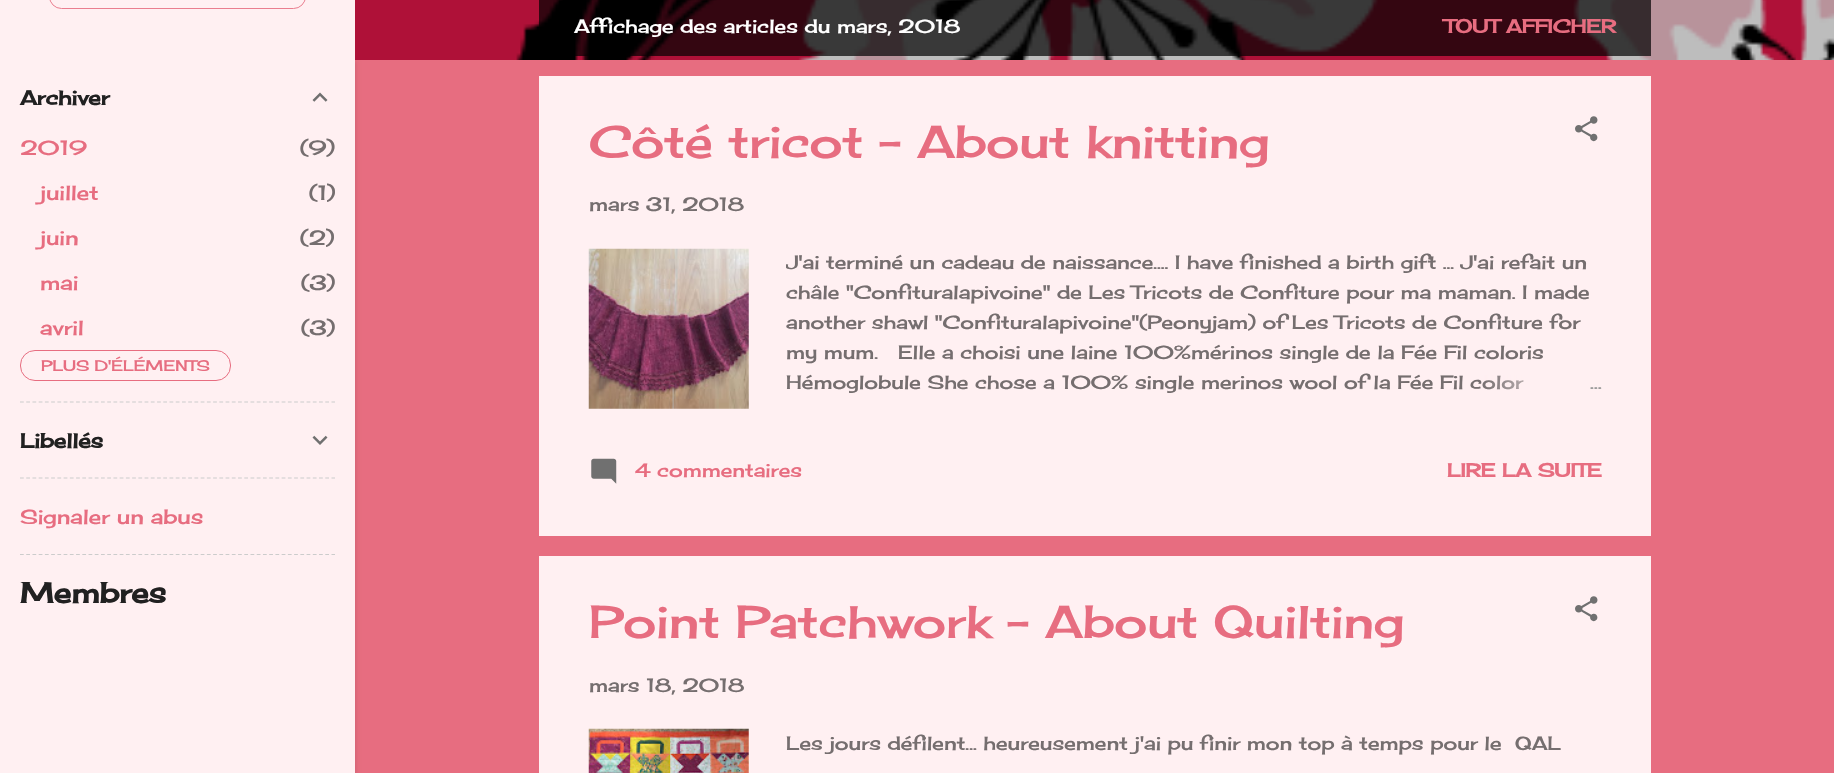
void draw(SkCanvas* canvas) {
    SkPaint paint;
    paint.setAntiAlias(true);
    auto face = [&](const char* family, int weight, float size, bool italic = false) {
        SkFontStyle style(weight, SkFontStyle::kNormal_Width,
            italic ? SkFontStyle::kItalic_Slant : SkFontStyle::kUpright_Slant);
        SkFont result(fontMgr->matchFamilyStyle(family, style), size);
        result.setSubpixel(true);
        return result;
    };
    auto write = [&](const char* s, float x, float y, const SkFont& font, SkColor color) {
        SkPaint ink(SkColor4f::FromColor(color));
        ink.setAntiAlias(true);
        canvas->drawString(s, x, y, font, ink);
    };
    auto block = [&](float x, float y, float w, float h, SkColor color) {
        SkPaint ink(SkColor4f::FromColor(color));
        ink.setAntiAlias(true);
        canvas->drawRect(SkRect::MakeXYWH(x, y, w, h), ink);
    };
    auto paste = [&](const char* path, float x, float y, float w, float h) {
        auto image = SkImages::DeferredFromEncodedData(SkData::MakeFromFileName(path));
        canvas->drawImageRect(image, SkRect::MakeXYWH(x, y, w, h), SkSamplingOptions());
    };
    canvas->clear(SkColorSetRGB(231, 109, 128));
    paste("pic3.png", 355, 0, 1479, 60);
    paint.setColor(SkColorSetARGB(26, 0, 0, 0));
    paint.setMaskFilter(SkMaskFilter::MakeBlur(kNormal_SkBlurStyle, 2));
    canvas->drawRect(SkRect::MakeXYWH(1, 61, 355, 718), paint);
    paint.setMaskFilter(nullptr);
    block(0, 0, 355, 773, SkColorSetRGB(255, 240, 242));
    paint.setStyle(SkPaint::kStroke_Style);
    paint.setStrokeWidth(1);
    paint.setColor(SkColorSetRGB(234, 126, 143));
    canvas->drawRoundRect(SkRect::MakeXYWH(49.5f, -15.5f, 256, 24), 14.5f, 14.5f, paint);
    auto kFont1 = face("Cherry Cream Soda", 700, 20);
    write("Archiver", 20, 105, kFont1, SkColorSetRGB(33, 33, 33));
    paste("pic1.png", 312, 92, 16, 10);
    auto kFont2 = face("Cherry Cream Soda", 400, 20);
    write("2019", 20, 155, kFont2, SkColorSetRGB(231, 109, 128));
    write("(9)", 300, 155, kFont2, SkColorSetRGB(117, 110, 111));
    write("juillet", 40, 200, kFont2, SkColorSetRGB(231, 109, 128));
    write("(1)", 309, 200, kFont2, SkColorSetRGB(117, 110, 111));
    write("juin", 40, 245, kFont2, SkColorSetRGB(231, 109, 128));
    write("(2)", 300, 245, kFont2, SkColorSetRGB(117, 110, 111));
    write("mai", 40, 290, kFont2, SkColorSetRGB(231, 109, 128));
    write("(3)", 301, 290, kFont2, SkColorSetRGB(117, 110, 111));
    write("avril", 40, 335, kFont2, SkColorSetRGB(231, 109, 128));
    write("(3)", 301, 335, kFont2, SkColorSetRGB(117, 110, 111));
    paint.setColor(SkColorSetRGB(231, 109, 128));
    canvas->drawRoundRect(SkRect::MakeXYWH(20.5f, 350.5f, 210, 30), 14.5f, 14.5f, paint);
    auto kFont3 = face("Cherry Cream Soda", 400, 15);
    write("PLUS D'ÉLÉMENTS", 41, 371, kFont3, SkColorSetRGB(231, 109, 128));
    paint.setStrokeWidth(1.2f);
    paint.setColor(SkColorSetRGB(204, 204, 204));
    paint.setPathEffect(SkDashPathEffect::Make({{3.75f, 2.48f}}, 0));
    canvas->drawPath(SkPathBuilder().moveTo(20, 402).lineTo(335, 402).detach(), paint);
    paint.setPathEffect(nullptr);
    write("Libellés", 20, 448, kFont1, SkColorSetRGB(33, 33, 33));
    paste("pic2.png", 312, 435, 16, 10);
    paint.setPathEffect(SkDashPathEffect::Make({{3.75f, 2.48f}}, 0));
    canvas->drawPath(SkPathBuilder().moveTo(20, 478).lineTo(335, 478).detach(), paint);
    paint.setPathEffect(nullptr);
    write("Signaler un abus", 20, 524, kFont2, SkColorSetRGB(231, 109, 128));
    paint.setPathEffect(SkDashPathEffect::Make({{3.75f, 2.48f}}, 0));
    canvas->drawPath(SkPathBuilder().moveTo(20, 554.5f).lineTo(335, 554.5f).detach(), paint);
    paint.setPathEffect(nullptr);
    auto kFont4 = face("Cherry Cream Soda", 700, 28);
    write("Membres", 20, 603, kFont4, SkColorSetRGB(33, 33, 33));
    block(539, 0, 1112, 56, SkColorSetARGB(179, 0, 0, 0));
    auto kFont5 = face("Cherry Cream Soda", 400, 18.75f);
    write("Affichage des articles du mars, 2018", 574, 33, kFont5, SK_ColorWHITE);
    auto kFont6 = face("Cherry Cream Soda", 700, 18.75f);
    write("TOUT AFFICHER", 1444, 33, kFont6, SkColorSetRGB(231, 109, 128));
    block(539, 76, 1112, 460, SkColorSetRGB(255, 240, 242));
    auto kFont7 = face("Cherry Cream Soda", 400, 45);
    write("Côté tricot - About knitting", 589, 158, kFont7, SkColorSetRGB(231, 109, 128));
    paste("pic4.png", 1575, 116, 23, 26);
    write("mars 31, 2018", 589, 211, kFont5, SkColorSetRGB(117, 110, 111));
    paste("pic5.png", 588, 248, 161, 161);
    canvas->save();
    canvas->clipRect(SkRect::MakeXYWH(786, 249, 815, 150));
    write("J'ai terminé un cadeau de naissance....", 786, 269, kFont5, SkColorSetRGB(117, 110, 111));
    canvas->restore();
    write("I have finished a birth gift ... J'ai refait un", 1175, 269, kFont5, SkColorSetRGB(117, 110, 111));
    write("châle \"Confituralapivoine\" de Les Tricots de Confiture pour ma maman. I made", 786, 299, kFont5, SkColorSetRGB(117, 110, 111));
    write("another shawl \"Confituralapivoine\"(Peonyjam) of Les Tricots de Confiture for", 786, 329, kFont5, SkColorSetRGB(117, 110, 111));
    write("my mum.", 786, 359, kFont5, SkColorSetRGB(117, 110, 111));
    write("Elle a choisi une laine 100%mérinos single de la Fée Fil coloris", 898, 359, kFont5, SkColorSetRGB(117, 110, 111));
    write("Hémoglobule She chose a 100% single merinos wool of la Fée Fil color", 786, 389, kFont5, SkColorSetRGB(117, 110, 111));
    paint.setStyle(SkPaint::kFill_Style);
    {
        const SkColor colors[] = {SkColorSetRGB(255, 240, 242), SkColorSetRGB(255, 240, 242), SkColorSetARGB(0, 255, 240, 242)};
        const float stops[] = {0, 0.2f, 1};
        const SkPoint ends[] = {{1601, 384}, {1481, 384}};
        paint.setShader(SkGradientShader::MakeLinear(ends, colors, stops, 3, SkTileMode::kClamp));
        paint.setAlpha(255);
    }
    canvas->drawRect(SkRect::MakeXYWH(1483, 375, 41, 15), paint);
    write("…", 1590, 389, kFont5, SkColorSetRGB(153, 153, 153));
    paste("pic6.png", 591, 458, 26, 26);
    write("4 commentaires", 635, 477, kFont5, SkColorSetRGB(231, 109, 128));
    write("LIRE LA SUITE", 1447, 477, kFont6, SkColorSetRGB(231, 109, 128));
    block(539, 556, 1112, 217, SkColorSetRGB(255, 240, 242));
    write("Point Patchwork - About Quilting", 589, 638, kFont7, SkColorSetRGB(231, 109, 128));
    paste("pic4.png", 1575, 596, 23, 26);
    write("mars 18, 2018", 589, 692, kFont5, SkColorSetRGB(117, 110, 111));
    paste("pic7.png", 588, 728, 161, 45);
    write("Les jours défilent... heureusement j'ai pu finir mon top à temps pour le", 786, 750, kFont5, SkColorSetRGB(117, 110, 111));
    write("QAL", 1515, 750, kFont5, SkColorSetRGB(117, 110, 111));
}
